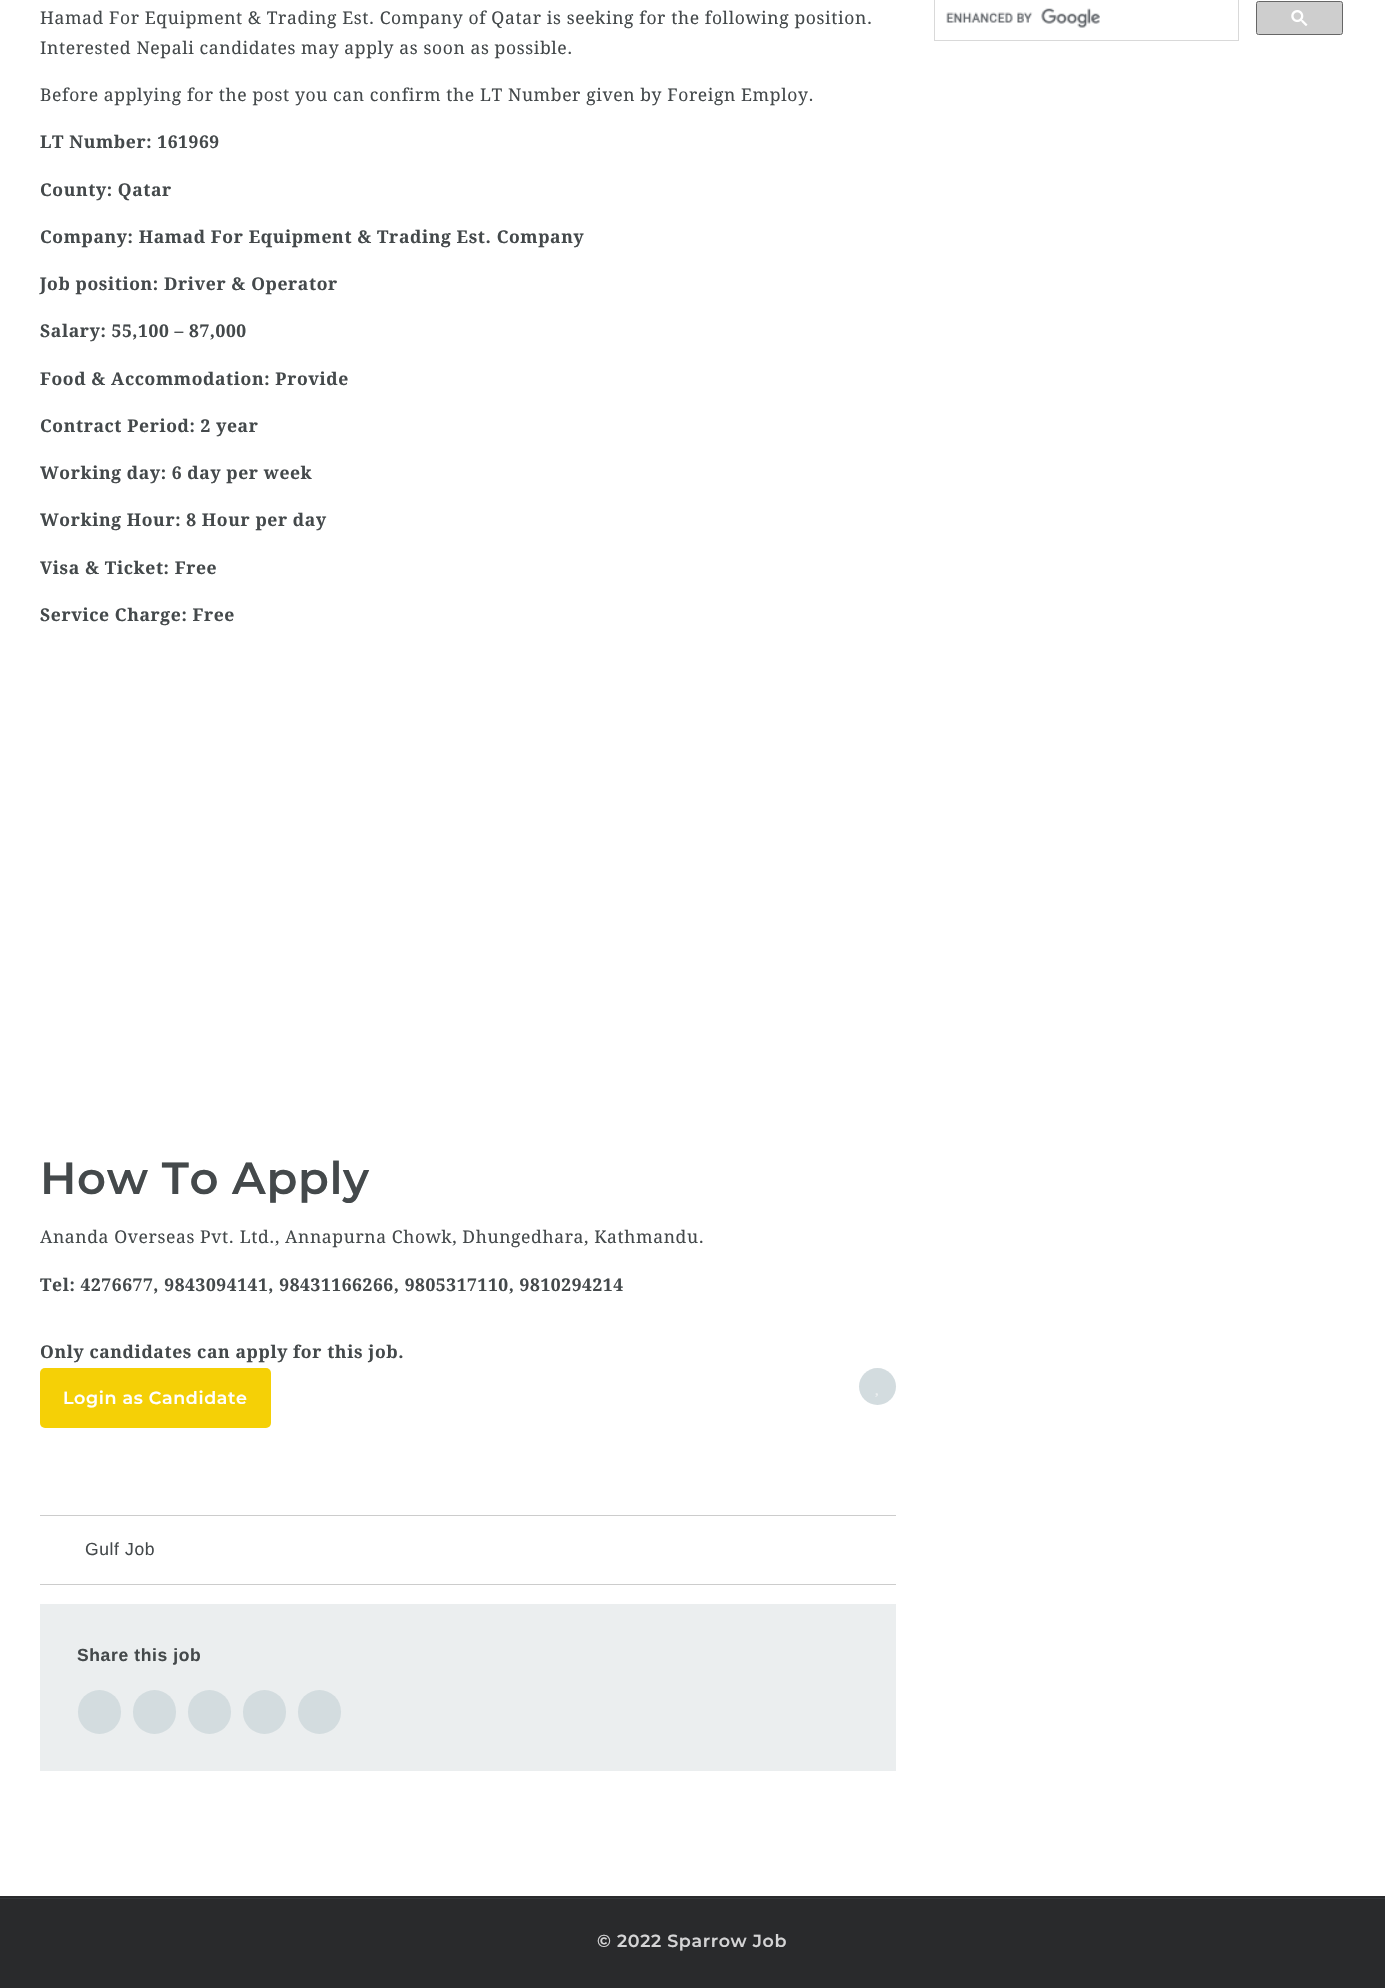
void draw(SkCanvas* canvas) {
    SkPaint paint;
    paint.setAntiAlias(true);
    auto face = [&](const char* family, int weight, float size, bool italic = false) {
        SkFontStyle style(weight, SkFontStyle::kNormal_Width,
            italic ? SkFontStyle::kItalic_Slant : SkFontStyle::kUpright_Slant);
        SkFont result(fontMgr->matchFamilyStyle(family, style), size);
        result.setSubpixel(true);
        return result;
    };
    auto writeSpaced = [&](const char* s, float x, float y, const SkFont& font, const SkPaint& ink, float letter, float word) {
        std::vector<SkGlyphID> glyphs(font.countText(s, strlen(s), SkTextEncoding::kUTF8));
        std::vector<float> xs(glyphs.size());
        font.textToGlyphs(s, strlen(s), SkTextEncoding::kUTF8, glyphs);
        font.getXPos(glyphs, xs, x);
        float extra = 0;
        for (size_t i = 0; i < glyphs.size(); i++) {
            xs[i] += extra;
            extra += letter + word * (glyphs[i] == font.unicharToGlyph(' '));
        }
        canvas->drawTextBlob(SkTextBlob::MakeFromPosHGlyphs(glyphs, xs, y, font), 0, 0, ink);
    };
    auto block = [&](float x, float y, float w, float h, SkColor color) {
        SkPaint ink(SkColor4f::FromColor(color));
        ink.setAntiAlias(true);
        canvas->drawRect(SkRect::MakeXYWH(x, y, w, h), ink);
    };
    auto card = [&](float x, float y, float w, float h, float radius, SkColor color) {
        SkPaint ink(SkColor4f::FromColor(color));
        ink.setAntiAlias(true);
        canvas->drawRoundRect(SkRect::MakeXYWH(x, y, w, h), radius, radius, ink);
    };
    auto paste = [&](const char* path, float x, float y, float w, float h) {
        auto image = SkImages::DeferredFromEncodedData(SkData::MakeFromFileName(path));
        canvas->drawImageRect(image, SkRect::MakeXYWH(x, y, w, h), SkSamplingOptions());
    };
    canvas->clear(SK_ColorWHITE);
    auto kFont1 = face("Droid Serif", 400, 17.5f);
    paint.setColor(SkColorSetRGB(68, 73, 75));
    writeSpaced("Hamad For Equipment & Trading Est. Company of Qatar is seeking for the following position.", 40, 24, kFont1, paint, 0.62f, 0);
    writeSpaced("Interested Nepali candidates may apply as soon as possible.", 40, 54, kFont1, paint, 0.62f, 0);
    writeSpaced("Before applying for the post you can confirm the LT Number given by Foreign Employ.", 40, 101, kFont1, paint, 0.62f, 0);
    auto kFont2 = face("Droid Serif", 700, 17.5f);
    writeSpaced("LT Number: 161969", 40, 148, kFont2, paint, 0.62f, 0);
    writeSpaced("County: Qatar", 40, 196, kFont2, paint, 0.62f, 0);
    writeSpaced("Company: Hamad For Equipment & Trading Est. Company", 40, 243, kFont2, paint, 0.62f, 0);
    writeSpaced("Job position: Driver & Operator", 40, 290, kFont2, paint, 0.62f, 0);
    writeSpaced("Salary: 55,100 – 87,000", 40, 337, kFont2, paint, 0.62f, 0);
    writeSpaced("Food & Accommodation: Provide", 40, 385, kFont2, paint, 0.62f, 0);
    writeSpaced("Contract Period: 2 year", 40, 432, kFont2, paint, 0.62f, 0);
    writeSpaced("Working day: 6 day per week", 40, 479, kFont2, paint, 0.62f, 0);
    writeSpaced("Working Hour: 8 Hour per day", 40, 526, kFont2, paint, 0.62f, 0);
    writeSpaced("Visa & Ticket: Free", 40, 574, kFont2, paint, 0.62f, 0);
    writeSpaced("Service Charge: Free", 40, 621, kFont2, paint, 0.62f, 0);
    auto kFont3 = face("Montserrat", 600, 45);
    writeSpaced("How To Apply", 40, 1194, kFont3, paint, 0.62f, 0);
    writeSpaced("Ananda Overseas Pvt. Ltd., Annapurna Chowk, Dhungedhara, Kathmandu.", 40, 1243, kFont1, paint, 0.62f, 0);
    writeSpaced("Tel: 4276677, 9843094141, 98431166266, 9805317110, 9810294214", 40, 1291, kFont2, paint, 0.62f, 0);
    writeSpaced("Only candidates can apply for this job.", 40, 1358, kFont2, paint, 0.62f, 0);
    card(40, 1368, 231, 60, 5, SkColorSetRGB(245, 208, 6));
    auto kFont4 = face("Montserrat", 600, 17.5f);
    paint.setColor(SK_ColorWHITE);
    writeSpaced("Login as Candidate", 63, 1404, kFont4, paint, 0.62f, 0);
    paint.setColor(SkColorSetRGB(211, 220, 223));
    canvas->drawCircle(877.5f, 1386.5f, 18.5f, paint);
    paste("pic1.png", 875, 1393, 3, 4);
    block(40, 1515, 856, 1, SkColorSetRGB(204, 204, 204));
    block(40, 1584, 856, 1, SkColorSetRGB(204, 204, 204));
    auto kFont5 = face("Liberation Sans", 400, 17.5f);
    paint.setColor(SkColorSetRGB(68, 73, 75));
    writeSpaced("Gulf Job", 85, 1555, kFont5, paint, 0.62f, 0);
    block(40, 1604, 856, 167, SkColorSetRGB(235, 238, 239));
    auto kFont6 = face("Liberation Sans", 700, 17.5f);
    writeSpaced("Share this job", 77, 1661, kFont6, paint, 0.62f, 0);
    card(78, 1690, 43, 44, 21.5f, SkColorSetRGB(211, 220, 223));
    card(133, 1690, 43, 44, 21.5f, SkColorSetRGB(211, 220, 223));
    card(188, 1690, 43, 44, 21.5f, SkColorSetRGB(211, 220, 223));
    card(243, 1690, 43, 44, 21.5f, SkColorSetRGB(211, 220, 223));
    card(298, 1690, 43, 44, 21.5f, SkColorSetRGB(211, 220, 223));
    paint.setStyle(SkPaint::kStroke_Style);
    paint.setStrokeWidth(1);
    paint.setColor(SkColorSetRGB(217, 217, 217));
    canvas->drawRect(SkRect::MakeXYWH(934.5f, -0.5f, 304, 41), paint);
    paste("pic2.png", 946, 8, 154, 20);
    paint.setStyle(SkPaint::kFill_Style);
    paint.setColor(SkColorSetRGB(206, 206, 206));
    canvas->drawRoundRect(SkRect::MakeXYWH(1256.5f, 1.5f, 86, 33), 2, 2, paint);
    paint.setStyle(SkPaint::kStroke_Style);
    paint.setColor(SkColorSetRGB(102, 102, 102));
    canvas->drawRoundRect(SkRect::MakeXYWH(1256.5f, 1.5f, 86, 33), 2, 2, paint);
    paste("pic3.png", 1291, 10, 17, 16);
    block(0, 1896, 1385, 92, SkColorSetRGB(41, 42, 44));
    block(0, 1898, 1385, 1, SkColorSetRGB(50, 55, 58));
    paint.setStyle(SkPaint::kFill_Style);
    paint.setColor(SkColorSetRGB(212, 212, 213));
    writeSpaced("© 2022 Sparrow Job", 597, 1947, kFont4, paint, 0.62f, 0);
}
